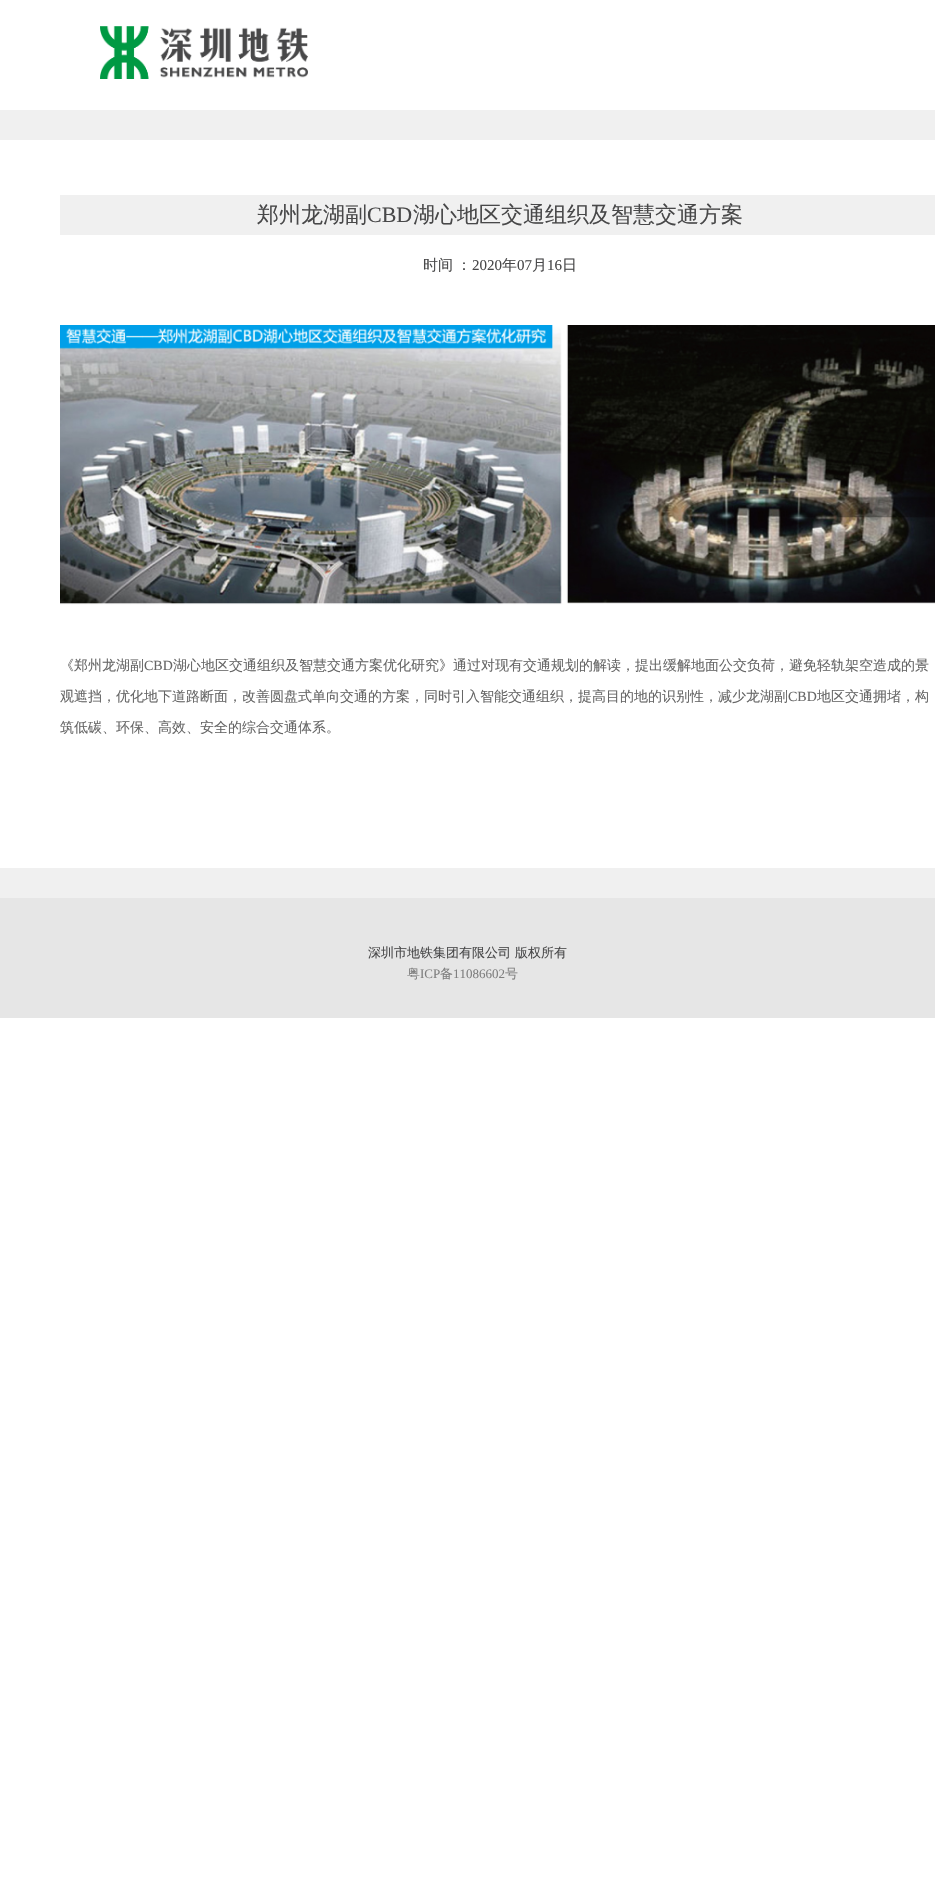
void draw(SkCanvas* canvas) {
    SkPaint paint;
    paint.setAntiAlias(true);
    auto face = [&](const char* family, int weight, float size, bool italic = false) {
        SkFontStyle style(weight, SkFontStyle::kNormal_Width,
            italic ? SkFontStyle::kItalic_Slant : SkFontStyle::kUpright_Slant);
        SkFont result(fontMgr->matchFamilyStyle(family, style), size);
        result.setSubpixel(true);
        return result;
    };
    auto write = [&](const char* s, float x, float y, const SkFont& font, SkColor color) {
        SkPaint ink(SkColor4f::FromColor(color));
        ink.setAntiAlias(true);
        canvas->drawString(s, x, y, font, ink);
    };
    auto writeSpaced = [&](const char* s, float x, float y, const SkFont& font, const SkPaint& ink, float letter, float word) {
        std::vector<SkGlyphID> glyphs(font.countText(s, strlen(s), SkTextEncoding::kUTF8));
        std::vector<float> xs(glyphs.size());
        font.textToGlyphs(s, strlen(s), SkTextEncoding::kUTF8, glyphs);
        font.getXPos(glyphs, xs, x);
        float extra = 0;
        for (size_t i = 0; i < glyphs.size(); i++) {
            xs[i] += extra;
            extra += letter + word * (glyphs[i] == font.unicharToGlyph(' '));
        }
        canvas->drawTextBlob(SkTextBlob::MakeFromPosHGlyphs(glyphs, xs, y, font), 0, 0, ink);
    };
    auto block = [&](float x, float y, float w, float h, SkColor color) {
        SkPaint ink(SkColor4f::FromColor(color));
        ink.setAntiAlias(true);
        canvas->drawRect(SkRect::MakeXYWH(x, y, w, h), ink);
    };
    auto paste = [&](const char* path, float x, float y, float w, float h) {
        auto image = SkImages::DeferredFromEncodedData(SkData::MakeFromFileName(path));
        canvas->drawImageRect(image, SkRect::MakeXYWH(x, y, w, h), SkSamplingOptions());
    };
    canvas->clear(SK_ColorWHITE);
    paste("pic1.png", 100, 26, 208, 53);
    block(0, 110, 935, 788, SkColorSetRGB(240, 240, 240));
    block(0, 140, 935, 728, SK_ColorWHITE);
    block(60, 195, 875, 40, SkColorSetRGB(240, 240, 240));
    auto kFont1 = face("WenQuanYi Zen Hei", 500, 22);
    write("郑州龙湖副", 257, 222, kFont1, SkColorSetRGB(72, 72, 73));
    auto kFont2 = face("Liberation Serif", 400, 22);
    write("CBD", 367, 222, kFont2, SkColorSetRGB(72, 72, 73));
    write("湖心地区交通组织及智慧交通方案", 413, 222, kFont1, SkColorSetRGB(72, 72, 73));
    auto kFont3 = face("WenQuanYi Zen Hei", 500, 15);
    paint.setColor(SkColorSetRGB(72, 72, 73));
    writeSpaced("时间 ：", 423, 270, kFont3, paint, 0, -1);
    auto kFont4 = face("Liberation Serif", 400, 15);
    write("2020", 472, 270, kFont4, SkColorSetRGB(72, 72, 73));
    write("年", 502, 270, kFont3, SkColorSetRGB(72, 72, 73));
    write("07", 517, 270, kFont4, SkColorSetRGB(72, 72, 73));
    write("月", 532, 270, kFont3, SkColorSetRGB(72, 72, 73));
    write("16", 547, 270, kFont4, SkColorSetRGB(72, 72, 73));
    write("日", 562, 270, kFont3, SkColorSetRGB(72, 72, 73));
    paste("pic2.png", 60, 325, 875, 280);
    auto kFont5 = face("WenQuanYi Zen Hei", 500, 14);
    write("《郑州龙湖副", 60, 670, kFont5, SkColorSetRGB(102, 102, 102));
    auto kFont6 = face("Liberation Serif", 400, 14);
    write("CBD", 144, 670, kFont6, SkColorSetRGB(102, 102, 102));
    write("湖心地区交通组织及智慧交通方案优化研究》通过对现有交通规划的解读，提出缓解地面公交负荷，避免轻轨架空造成的景", 173, 670, kFont5, SkColorSetRGB(102, 102, 102));
    write("观遮挡，优化地下道路断面，改善圆盘式单向交通的方案，同时引入智能交通组织，提高目的地的识别性，减少龙湖副", 60, 701, kFont5, SkColorSetRGB(102, 102, 102));
    write("CBD", 788, 701, kFont6, SkColorSetRGB(102, 102, 102));
    write("地区交通拥堵，构", 817, 701, kFont5, SkColorSetRGB(102, 102, 102));
    write("筑低碳、环保、高效、安全的综合交通体系。", 60, 732, kFont5, SkColorSetRGB(102, 102, 102));
    block(0, 898, 935, 120, SkColorSetRGB(230, 230, 230));
    auto kFont7 = face("WenQuanYi Zen Hei", 500, 13);
    write("深圳市地铁集团有限公司", 368, 957, kFont7, SkColorSetRGB(72, 72, 73));
    write("版权所有", 515, 957, kFont7, SkColorSetRGB(72, 72, 73));
    write("粤", 407, 978, kFont7, SkColorSetRGB(127, 127, 127));
    auto kFont8 = face("Liberation Serif", 400, 13);
    write("ICP", 420, 978, kFont8, SkColorSetRGB(127, 127, 127));
    write("备", 440, 978, kFont7, SkColorSetRGB(127, 127, 127));
    write("11086602", 453, 978, kFont8, SkColorSetRGB(127, 127, 127));
    write("号", 505, 978, kFont7, SkColorSetRGB(127, 127, 127));
}
